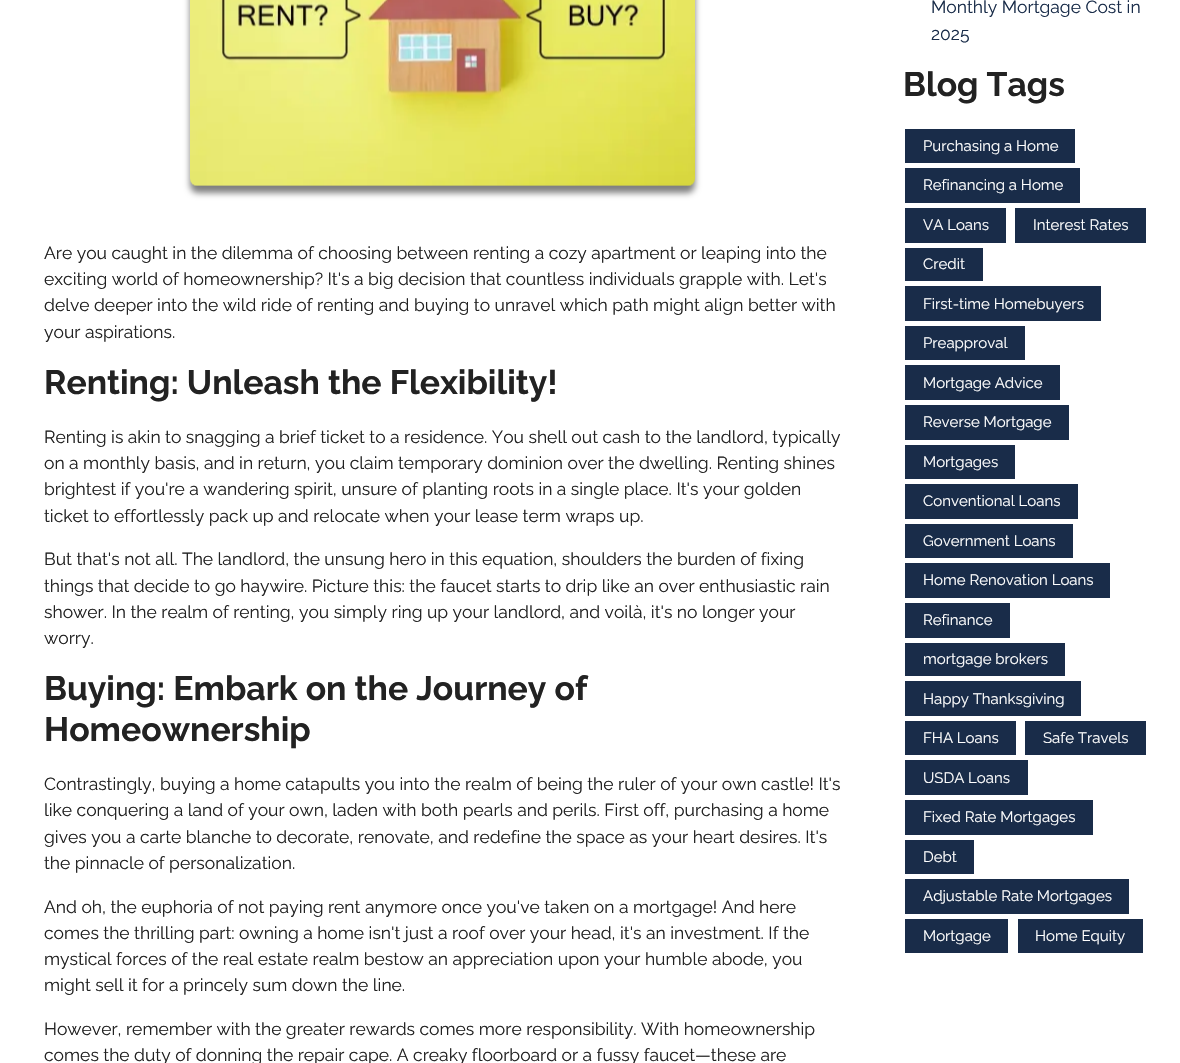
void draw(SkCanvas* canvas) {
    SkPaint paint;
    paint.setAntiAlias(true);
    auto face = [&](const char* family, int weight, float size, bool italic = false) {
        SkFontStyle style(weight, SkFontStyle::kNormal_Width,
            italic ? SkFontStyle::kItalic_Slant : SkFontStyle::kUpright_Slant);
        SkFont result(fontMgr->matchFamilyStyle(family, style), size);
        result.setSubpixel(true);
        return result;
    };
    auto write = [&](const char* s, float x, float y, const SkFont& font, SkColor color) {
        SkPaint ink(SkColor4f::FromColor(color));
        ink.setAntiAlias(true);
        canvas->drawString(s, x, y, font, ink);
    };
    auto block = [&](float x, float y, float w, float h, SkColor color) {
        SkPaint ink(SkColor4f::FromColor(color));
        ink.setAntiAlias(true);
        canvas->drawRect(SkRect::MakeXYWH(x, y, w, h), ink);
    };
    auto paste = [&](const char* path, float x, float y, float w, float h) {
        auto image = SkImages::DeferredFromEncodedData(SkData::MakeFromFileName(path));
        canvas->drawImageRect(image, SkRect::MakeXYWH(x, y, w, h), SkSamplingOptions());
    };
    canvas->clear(SK_ColorWHITE);
    paint.setColor(SkColorSetARGB(128, 0, 0, 0));
    paint.setMaskFilter(SkMaskFilter::MakeBlur(kNormal_SkBlurStyle, 3));
    canvas->drawRoundRect(SkRect::MakeXYWH(190, -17, 505, 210), 8, 8, paint);
    paint.setMaskFilter(nullptr);
    paste("pic1.png", 190, 0, 505, 186);
    auto kFont1 = face("Raleway", 400, 17.5f);
    write("Are you caught in the dilemma of choosing between renting a cozy apartment or leaping into the", 44, 259, kFont1, SkColorSetRGB(34, 34, 34));
    write("exciting world of homeownership? It's a big decision that countless individuals grapple with. Let's", 44, 285, kFont1, SkColorSetRGB(34, 34, 34));
    write("delve deeper into the wild ride of renting and buying to unravel which path might align better with", 44, 311, kFont1, SkColorSetRGB(34, 34, 34));
    write("your aspirations.", 44, 338, kFont1, SkColorSetRGB(34, 34, 34));
    auto kFont2 = face("Raleway", 700, 33.75f);
    write("Renting: Unleash the Flexibility!", 44, 394, kFont2, SkColorSetRGB(34, 34, 34));
    write("Renting is akin to snagging a brief ticket to a residence. You shell out cash to the landlord, typically", 44, 443, kFont1, SkColorSetRGB(34, 34, 34));
    write("on a monthly basis, and in return, you claim temporary dominion over the dwelling. Renting shines", 44, 469, kFont1, SkColorSetRGB(34, 34, 34));
    write("brightest if you're a wandering spirit, unsure of planting roots in a single place. It's your golden", 44, 495, kFont1, SkColorSetRGB(34, 34, 34));
    write("ticket to effortlessly pack up and relocate when your lease term wraps up.", 44, 522, kFont1, SkColorSetRGB(34, 34, 34));
    write("But that's not all. The landlord, the unsung hero in this equation, shoulders the burden of fixing", 44, 565, kFont1, SkColorSetRGB(34, 34, 34));
    write("things that decide to go haywire. Picture this: the faucet starts to drip like an over enthusiastic rain", 44, 592, kFont1, SkColorSetRGB(34, 34, 34));
    write("shower. In the realm of renting, you simply ring up your landlord, and voilà, it's no longer your", 44, 618, kFont1, SkColorSetRGB(34, 34, 34));
    write("worry.", 44, 644, kFont1, SkColorSetRGB(34, 34, 34));
    write("Buying: Embark on the Journey of", 44, 700, kFont2, SkColorSetRGB(34, 34, 34));
    write("Homeownership", 44, 741, kFont2, SkColorSetRGB(34, 34, 34));
    write("Contrastingly, buying a home catapults you into the realm of being the ruler of your own castle! It's", 44, 790, kFont1, SkColorSetRGB(34, 34, 34));
    write("like conquering a land of your own, laden with both pearls and perils. First off, purchasing a home", 44, 816, kFont1, SkColorSetRGB(34, 34, 34));
    write("gives you a carte blanche to decorate, renovate, and redefine the space as your heart desires. It's", 44, 843, kFont1, SkColorSetRGB(34, 34, 34));
    write("the pinnacle of personalization.", 44, 869, kFont1, SkColorSetRGB(34, 34, 34));
    write("And oh, the euphoria of not paying rent anymore once you've taken on a mortgage! And here", 44, 913, kFont1, SkColorSetRGB(34, 34, 34));
    write("comes the thrilling part: owning a home isn't just a roof over your head, it's an investment. If the", 44, 939, kFont1, SkColorSetRGB(34, 34, 34));
    write("mystical forces of the real estate realm bestow an appreciation upon your humble abode, you", 44, 965, kFont1, SkColorSetRGB(34, 34, 34));
    write("might sell it for a princely sum down the line.", 44, 991, kFont1, SkColorSetRGB(34, 34, 34));
    write("However, remember with the greater rewards comes more responsibility. With homeownership", 44, 1035, kFont1, SkColorSetRGB(34, 34, 34));
    write("comes the duty of donning the repair cape. A creaky floorboard or a fussy faucet—these are", 44, 1061, kFont1, SkColorSetRGB(34, 34, 34));
    write("Monthly Mortgage Cost in", 931, 13, kFont1, SkColorSetRGB(25, 44, 73));
    write("2025", 931, 40, kFont1, SkColorSetRGB(25, 44, 73));
    write("Blog Tags", 903, 96, kFont2, SkColorSetRGB(34, 34, 34));
    block(905, 129, 170, 34, SkColorSetRGB(25, 44, 73));
    auto kFont3 = face("Raleway", 400, 15);
    write("Purchasing a Home", 923, 151, kFont3, SK_ColorWHITE);
    block(905, 168, 175, 35, SkColorSetRGB(25, 44, 73));
    write("Refinancing a Home", 923, 190, kFont3, SK_ColorWHITE);
    block(905, 208, 101, 35, SkColorSetRGB(25, 44, 73));
    write("VA Loans", 923, 230, kFont3, SK_ColorWHITE);
    block(1015, 208, 131, 35, SkColorSetRGB(25, 44, 73));
    write("Interest Rates", 1033, 230, kFont3, SK_ColorWHITE);
    block(905, 248, 78, 33, SkColorSetRGB(25, 44, 73));
    write("Credit", 923, 269, kFont3, SK_ColorWHITE);
    block(905, 286, 196, 35, SkColorSetRGB(25, 44, 73));
    write("First-time Homebuyers", 923, 309, kFont3, SK_ColorWHITE);
    block(905, 326, 120, 34, SkColorSetRGB(25, 44, 73));
    write("Preapproval", 923, 348, kFont3, SK_ColorWHITE);
    block(905, 365, 155, 35, SkColorSetRGB(25, 44, 73));
    write("Mortgage Advice", 923, 388, kFont3, SK_ColorWHITE);
    block(905, 405, 164, 35, SkColorSetRGB(25, 44, 73));
    write("Reverse Mortgage", 923, 427, kFont3, SK_ColorWHITE);
    block(905, 445, 110, 34, SkColorSetRGB(25, 44, 73));
    write("Mortgages", 923, 467, kFont3, SK_ColorWHITE);
    block(905, 484, 173, 35, SkColorSetRGB(25, 44, 73));
    write("Conventional Loans", 923, 506, kFont3, SK_ColorWHITE);
    block(905, 524, 168, 34, SkColorSetRGB(25, 44, 73));
    write("Government Loans", 923, 546, kFont3, SK_ColorWHITE);
    block(905, 563, 205, 35, SkColorSetRGB(25, 44, 73));
    write("Home Renovation Loans", 923, 585, kFont3, SK_ColorWHITE);
    block(905, 603, 105, 35, SkColorSetRGB(25, 44, 73));
    write("Refinance", 923, 625, kFont3, SK_ColorWHITE);
    block(905, 643, 160, 33, SkColorSetRGB(25, 44, 73));
    write("mortgage brokers", 923, 664, kFont3, SK_ColorWHITE);
    block(905, 681, 176, 35, SkColorSetRGB(25, 44, 73));
    write("Happy Thanksgiving", 923, 704, kFont3, SK_ColorWHITE);
    block(905, 721, 111, 34, SkColorSetRGB(25, 44, 73));
    write("FHA Loans", 923, 743, kFont3, SK_ColorWHITE);
    block(1025, 721, 121, 34, SkColorSetRGB(25, 44, 73));
    write("Safe Travels", 1043, 743, kFont3, SK_ColorWHITE);
    block(905, 760, 123, 35, SkColorSetRGB(25, 44, 73));
    write("USDA Loans", 923, 783, kFont3, SK_ColorWHITE);
    block(905, 800, 188, 35, SkColorSetRGB(25, 44, 73));
    write("Fixed Rate Mortgages", 923, 822, kFont3, SK_ColorWHITE);
    block(905, 840, 69, 34, SkColorSetRGB(25, 44, 73));
    write("Debt", 923, 862, kFont3, SK_ColorWHITE);
    block(905, 879, 224, 35, SkColorSetRGB(25, 44, 73));
    write("Adjustable Rate Mortgages", 923, 901, kFont3, SK_ColorWHITE);
    block(905, 919, 103, 34, SkColorSetRGB(25, 44, 73));
    write("Mortgage", 923, 941, kFont3, SK_ColorWHITE);
    block(1018, 919, 125, 34, SkColorSetRGB(25, 44, 73));
    write("Home Equity", 1035, 941, kFont3, SK_ColorWHITE);
}
